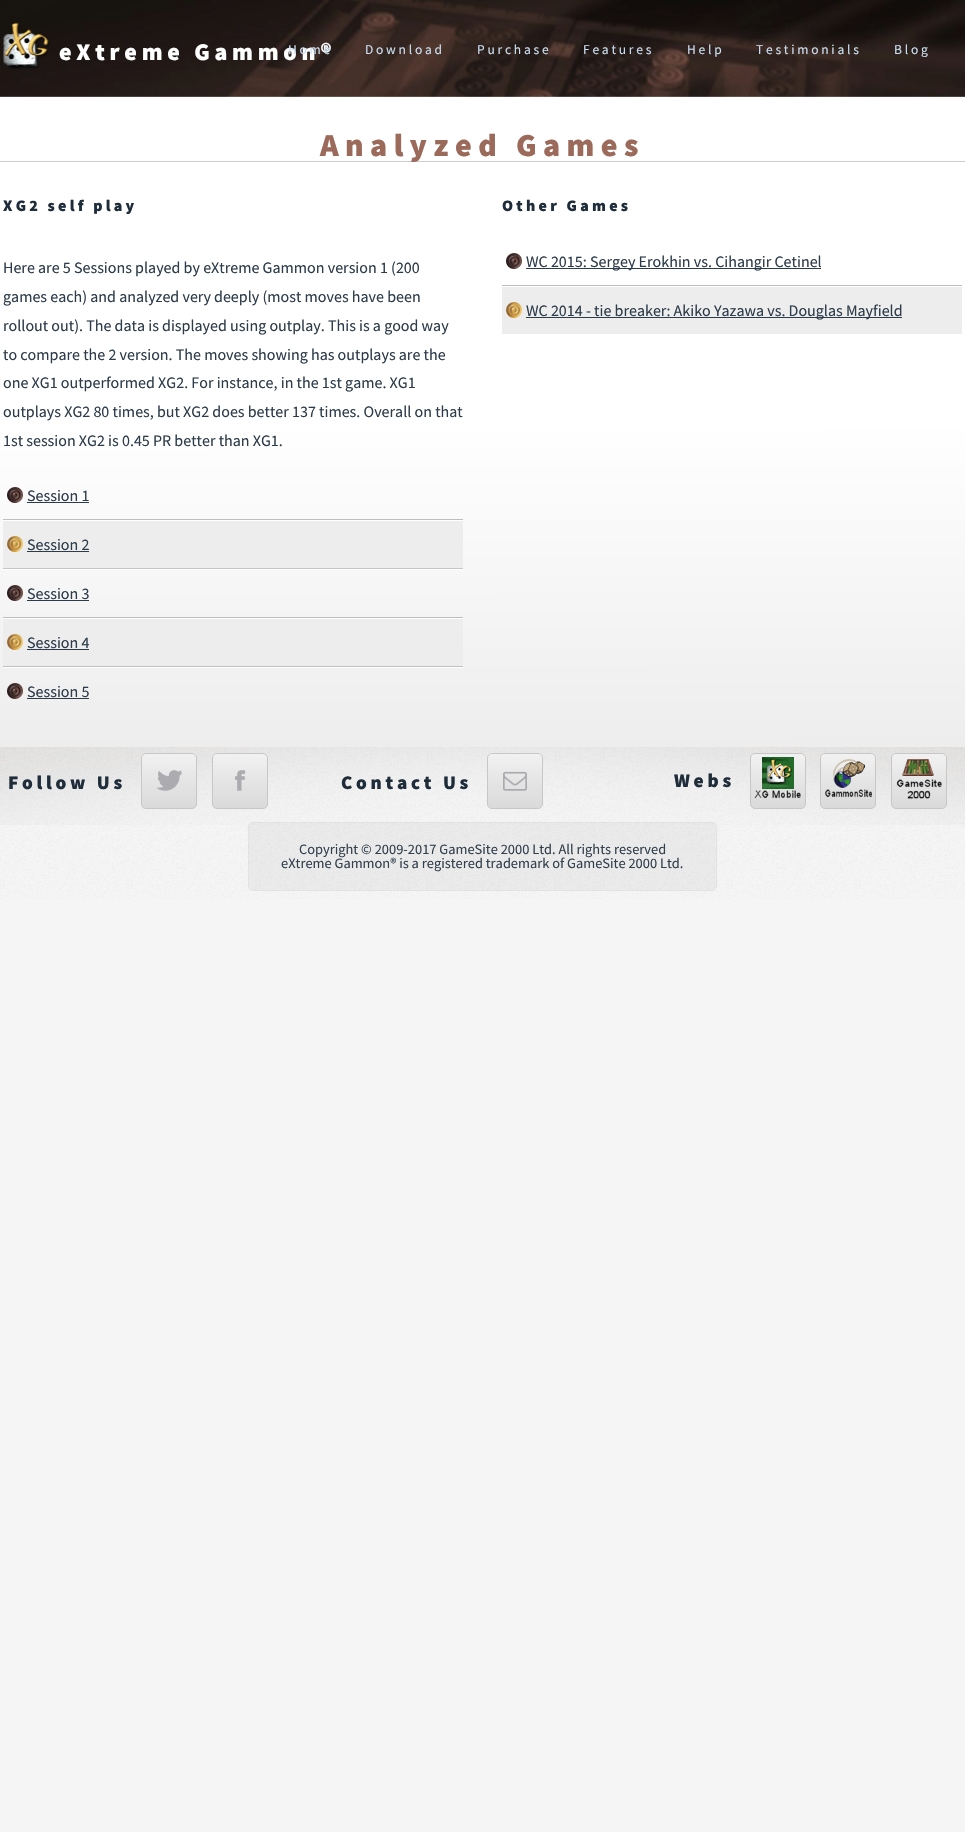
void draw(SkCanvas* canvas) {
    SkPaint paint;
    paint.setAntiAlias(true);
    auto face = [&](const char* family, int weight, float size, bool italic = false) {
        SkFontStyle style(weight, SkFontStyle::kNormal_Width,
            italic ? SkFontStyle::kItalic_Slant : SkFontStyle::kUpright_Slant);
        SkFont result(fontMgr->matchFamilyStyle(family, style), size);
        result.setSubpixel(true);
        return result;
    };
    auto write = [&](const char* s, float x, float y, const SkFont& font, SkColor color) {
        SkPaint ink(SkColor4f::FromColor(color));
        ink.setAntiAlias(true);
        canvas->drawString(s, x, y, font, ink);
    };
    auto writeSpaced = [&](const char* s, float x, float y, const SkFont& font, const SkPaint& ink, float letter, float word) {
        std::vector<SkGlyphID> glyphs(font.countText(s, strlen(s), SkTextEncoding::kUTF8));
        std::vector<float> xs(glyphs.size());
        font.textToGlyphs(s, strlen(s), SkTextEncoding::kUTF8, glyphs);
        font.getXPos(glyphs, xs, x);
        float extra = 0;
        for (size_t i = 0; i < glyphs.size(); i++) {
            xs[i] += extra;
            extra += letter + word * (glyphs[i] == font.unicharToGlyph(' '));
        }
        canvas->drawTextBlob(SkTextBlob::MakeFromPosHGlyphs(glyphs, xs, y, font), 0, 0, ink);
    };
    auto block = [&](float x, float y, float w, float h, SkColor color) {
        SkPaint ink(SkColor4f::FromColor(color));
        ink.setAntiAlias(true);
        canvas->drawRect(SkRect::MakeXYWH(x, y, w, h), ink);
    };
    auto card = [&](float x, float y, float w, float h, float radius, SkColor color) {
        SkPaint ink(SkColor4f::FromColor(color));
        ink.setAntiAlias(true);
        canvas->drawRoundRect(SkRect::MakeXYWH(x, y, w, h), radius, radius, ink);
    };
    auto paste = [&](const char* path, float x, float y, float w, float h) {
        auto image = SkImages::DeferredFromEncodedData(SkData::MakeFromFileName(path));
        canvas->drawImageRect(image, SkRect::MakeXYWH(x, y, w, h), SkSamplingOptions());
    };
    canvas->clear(SkColorSetRGB(245, 245, 245));
    paste("pic1.png", 0, 0, 965, 97);
    block(0, 96, 965, 1, SkColorSetARGB(18, 255, 255, 255));
    paste("pic2.png", 3, 22, 47, 47);
    auto kFont1 = face("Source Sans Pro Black", 900, 24);
    paint.setColor(SK_ColorWHITE);
    writeSpaced("eXtreme Gammon®", 59, 60, kFont1, paint, 4.75f, 0);
    auto kFont2 = face("Source Sans Pro", 400, 13.5f);
    paint.setColor(SkColorSetRGB(203, 223, 241));
    writeSpaced("Home", 288, 54, kFont2, paint, 2.75f, 0);
    writeSpaced("Download", 365, 54, kFont2, paint, 2.75f, 0);
    writeSpaced("Purchase", 477, 54, kFont2, paint, 2.75f, 0);
    writeSpaced("Features", 583, 54, kFont2, paint, 2.75f, 0);
    writeSpaced("Help", 687, 54, kFont2, paint, 2.75f, 0);
    writeSpaced("Testimonials", 756, 54, kFont2, paint, 2.75f, 0);
    writeSpaced("Blog", 894, 54, kFont2, paint, 2.75f, 0);
    {
        const SkColor colors[] = {SK_ColorWHITE, SK_ColorWHITE, SkColorSetRGB(237, 237, 237), SK_ColorWHITE, SkColorSetRGB(238, 238, 238)};
        const float stops[] = {0, 0.5f, 1, 1, 1};
        const SkPoint ends[] = {{482, 97}, {483, 747}};
        paint.setShader(SkGradientShader::MakeLinear(ends, colors, stops, 5, SkTileMode::kClamp));
        paint.setAlpha(255);
    }
    canvas->drawRect(SkRect::MakeXYWH(0, 97, 965, 650), paint);
    block(0, 161, 965, 1, SkColorSetRGB(204, 204, 204));
    auto kFont3 = face("Source Sans Pro Black", 900, 32);
    paint.setShader(nullptr);
    paint.setColor(SkColorSetRGB(155, 106, 91));
    writeSpaced("Analyzed Games", 320, 156, kFont3, paint, 6.4f, 0);
    auto kFont4 = face("Source Sans Pro Black", 900, 16);
    paint.setColor(SkColorSetRGB(31, 45, 59));
    writeSpaced("XG2 self play", 3, 211, kFont4, paint, 3.25f, 0);
    auto kFont5 = face("Source Sans Pro", 400, 16);
    write("Here are 5 Sessions played by eXtreme Gammon version 1 (200", 3, 273, kFont5, SkColorSetRGB(45, 60, 74));
    write("games each) and analyzed very deeply (most moves have been", 3, 302, kFont5, SkColorSetRGB(45, 60, 74));
    write("rollout out). The data is displayed using outplay. This is a good way", 3, 331, kFont5, SkColorSetRGB(45, 60, 74));
    write("to compare the 2 version. The moves showing has outplays are the", 3, 360, kFont5, SkColorSetRGB(45, 60, 74));
    write("one XG1 outperformed XG2. For instance, in the 1st game. XG1", 3, 388, kFont5, SkColorSetRGB(45, 60, 74));
    write("outplays XG2 80 times, but XG2 does better 137 times. Overall on that", 3, 417, kFont5, SkColorSetRGB(45, 60, 74));
    write("1st session XG2 is 0.45 PR better than XG1.", 3, 446, kFont5, SkColorSetRGB(45, 60, 74));
    paste("pic3.png", 7, 487, 16, 16);
    write("Session 1", 27, 501, kFont5, SkColorSetRGB(45, 60, 74));
    block(27, 502, 62, 1, SkColorSetRGB(45, 60, 74));
    block(3, 521, 460, 47, SkColorSetRGB(237, 237, 237));
    paste("pic4.png", 7, 536, 16, 16);
    block(3, 520, 460, 1, SK_ColorWHITE);
    block(3, 519, 460, 1, SkColorSetRGB(190, 190, 190));
    write("Session 2", 27, 550, kFont5, SkColorSetRGB(45, 60, 74));
    block(27, 551, 62, 1, SkColorSetRGB(45, 60, 74));
    paste("pic5.png", 7, 585, 16, 16);
    block(3, 569, 460, 1, SK_ColorWHITE);
    block(3, 568, 460, 1, SkColorSetRGB(198, 198, 198));
    write("Session 3", 27, 599, kFont5, SkColorSetRGB(45, 60, 74));
    block(27, 600, 62, 1, SkColorSetRGB(45, 60, 74));
    block(3, 619, 460, 47, SkColorSetRGB(237, 237, 237));
    paste("pic4.png", 7, 634, 16, 16);
    block(3, 618, 460, 1, SK_ColorWHITE);
    block(3, 617, 460, 1, SkColorSetRGB(190, 190, 190));
    write("Session 4", 27, 648, kFont5, SkColorSetRGB(45, 60, 74));
    block(27, 649, 62, 1, SkColorSetRGB(45, 60, 74));
    paste("pic6.png", 7, 683, 16, 16);
    block(3, 667, 460, 1, SK_ColorWHITE);
    block(3, 666, 460, 1, SkColorSetRGB(193, 193, 193));
    write("Session 5", 27, 697, kFont5, SkColorSetRGB(45, 60, 74));
    block(27, 698, 62, 1, SkColorSetRGB(45, 60, 74));
    writeSpaced("Other Games", 502, 211, kFont4, paint, 3.25f, 0);
    paste("pic7.png", 506, 253, 16, 16);
    block(526, 268, 295, 1, SkColorSetRGB(45, 60, 74));
    write("WC 2015: Sergey Erokhin vs. Cihangir Cetinel", 526, 267, kFont5, SkColorSetRGB(45, 60, 74));
    block(502, 287, 460, 47, SkColorSetRGB(237, 237, 237));
    paste("pic4.png", 506, 302, 16, 16);
    block(502, 285, 460, 1, SkColorSetRGB(190, 190, 190));
    block(526, 317, 376, 1, SkColorSetRGB(45, 60, 74));
    write("WC 2014 - tie breaker: Akiko Yazawa vs. Douglas Mayfield", 526, 316, kFont5, SkColorSetRGB(45, 60, 74));
    paint.setColor(SkColorSetRGB(235, 235, 235));
    canvas->drawRoundRect(SkRect::MakeXYWH(248.5f, 822.5f, 468, 68), 4.5f, 4.5f, paint);
    paint.setStyle(SkPaint::kStroke_Style);
    paint.setStrokeWidth(1);
    paint.setColor(SkColorSetRGB(228, 228, 228));
    canvas->drawRoundRect(SkRect::MakeXYWH(248.5f, 822.5f, 468, 68), 4.5f, 4.5f, paint);
    paste("pic8.png", 0, 747, 965, 78);
    auto kFont6 = face("Source Sans Pro", 400, 14.4f);
    write("Copyright © 2009-2017 GameSite 2000 Ltd. All rights reserved", 299, 854, kFont6, SkColorSetRGB(45, 60, 74));
    write("eXtreme Gammon® is a registered trademark of GameSite 2000 Ltd.", 281, 868, kFont6, SkColorSetRGB(45, 60, 74));
    paste("pic9.png", 0, 747, 965, 152);
    auto kFont7 = face("Source Sans Pro Black", 900, 19.25f);
    paint.setStyle(SkPaint::kFill_Style);
    paint.setColor(SkColorSetRGB(31, 45, 59));
    writeSpaced("Follow Us", 8, 789, kFont7, paint, 3.75f, 0);
    card(141, 753, 56, 56, 5, SkColorSetRGB(242, 242, 242));
    {
        const SkColor colors[] = {SkColorSetARGB(0, 0, 0, 0), SkColorSetARGB(26, 0, 0, 0)};
        const float stops[] = {0, 1};
        const SkPoint ends[] = {{169, 753}, {169, 809}};
        paint.setShader(SkGradientShader::MakeLinear(ends, colors, stops, 2, SkTileMode::kClamp));
        paint.setAlpha(255);
    }
    canvas->drawRoundRect(SkRect::MakeXYWH(141.5f, 753.5f, 55, 55), 4.5f, 4.5f, paint);
    paint.setStyle(SkPaint::kStroke_Style);
    paint.setShader(nullptr);
    paint.setColor(SkColorSetRGB(200, 199, 199));
    canvas->drawRoundRect(SkRect::MakeXYWH(141.5f, 753.5f, 55, 55), 4.5f, 4.5f, paint);
    paste("pic10.png", 157, 770, 25, 21);
    card(212, 753, 56, 56, 5, SkColorSetRGB(242, 242, 242));
    paint.setStyle(SkPaint::kFill_Style);
    {
        const SkColor colors[] = {SkColorSetARGB(0, 0, 0, 0), SkColorSetARGB(26, 0, 0, 0)};
        const float stops[] = {0, 1};
        const SkPoint ends[] = {{240, 753}, {240, 809}};
        paint.setShader(SkGradientShader::MakeLinear(ends, colors, stops, 2, SkTileMode::kClamp));
        paint.setAlpha(255);
    }
    canvas->drawRoundRect(SkRect::MakeXYWH(212.5f, 753.5f, 55, 55), 4.5f, 4.5f, paint);
    paint.setStyle(SkPaint::kStroke_Style);
    paint.setShader(nullptr);
    paint.setColor(SkColorSetRGB(200, 199, 199));
    canvas->drawRoundRect(SkRect::MakeXYWH(212.5f, 753.5f, 55, 55), 4.5f, 4.5f, paint);
    paste("pic11.png", 235, 770, 11, 21);
    paint.setStyle(SkPaint::kFill_Style);
    paint.setColor(SkColorSetRGB(31, 45, 59));
    writeSpaced("Contact Us", 341, 789, kFont7, paint, 3.75f, 0);
    card(487, 753, 56, 56, 5, SkColorSetRGB(242, 242, 242));
    {
        const SkColor colors[] = {SkColorSetARGB(0, 0, 0, 0), SkColorSetARGB(26, 0, 0, 0)};
        const float stops[] = {0, 1};
        const SkPoint ends[] = {{515, 753}, {515, 809}};
        paint.setShader(SkGradientShader::MakeLinear(ends, colors, stops, 2, SkTileMode::kClamp));
        paint.setAlpha(255);
    }
    canvas->drawRoundRect(SkRect::MakeXYWH(487.5f, 753.5f, 55, 55), 4.5f, 4.5f, paint);
    paint.setStyle(SkPaint::kStroke_Style);
    paint.setShader(nullptr);
    paint.setColor(SkColorSetRGB(200, 199, 199));
    canvas->drawRoundRect(SkRect::MakeXYWH(487.5f, 753.5f, 55, 55), 4.5f, 4.5f, paint);
    paste("pic12.png", 503, 771, 24, 20);
    paint.setStyle(SkPaint::kFill_Style);
    paint.setColor(SkColorSetRGB(31, 45, 59));
    writeSpaced("Webs", 674, 787, kFont7, paint, 3.75f, 0);
    card(750, 753, 56, 56, 5, SkColorSetRGB(242, 242, 242));
    {
        const SkColor colors[] = {SkColorSetARGB(0, 0, 0, 0), SkColorSetARGB(26, 0, 0, 0)};
        const float stops[] = {0, 1};
        const SkPoint ends[] = {{778, 753}, {778, 809}};
        paint.setShader(SkGradientShader::MakeLinear(ends, colors, stops, 2, SkTileMode::kClamp));
        paint.setAlpha(255);
    }
    canvas->drawRoundRect(SkRect::MakeXYWH(750.5f, 753.5f, 55, 55), 4.5f, 4.5f, paint);
    paint.setStyle(SkPaint::kStroke_Style);
    paint.setShader(nullptr);
    paint.setColor(SkColorSetRGB(200, 199, 199));
    canvas->drawRoundRect(SkRect::MakeXYWH(750.5f, 753.5f, 55, 55), 4.5f, 4.5f, paint);
    paste("pic13.png", 754, 757, 47, 42);
    card(820, 753, 56, 56, 5, SkColorSetRGB(242, 242, 242));
    paint.setStyle(SkPaint::kFill_Style);
    {
        const SkColor colors[] = {SkColorSetARGB(0, 0, 0, 0), SkColorSetARGB(26, 0, 0, 0)};
        const float stops[] = {0, 1};
        const SkPoint ends[] = {{848, 753}, {848, 809}};
        paint.setShader(SkGradientShader::MakeLinear(ends, colors, stops, 2, SkTileMode::kClamp));
        paint.setAlpha(255);
    }
    canvas->drawRoundRect(SkRect::MakeXYWH(820.5f, 753.5f, 55, 55), 4.5f, 4.5f, paint);
    paint.setStyle(SkPaint::kStroke_Style);
    paint.setShader(nullptr);
    paint.setColor(SkColorSetRGB(200, 199, 199));
    canvas->drawRoundRect(SkRect::MakeXYWH(820.5f, 753.5f, 55, 55), 4.5f, 4.5f, paint);
    paste("pic14.png", 825, 759, 47, 39);
    card(891, 753, 56, 56, 5, SkColorSetRGB(242, 242, 242));
    paint.setStyle(SkPaint::kFill_Style);
    {
        const SkColor colors[] = {SkColorSetARGB(0, 0, 0, 0), SkColorSetARGB(26, 0, 0, 0)};
        const float stops[] = {0, 1};
        const SkPoint ends[] = {{919, 753}, {919, 809}};
        paint.setShader(SkGradientShader::MakeLinear(ends, colors, stops, 2, SkTileMode::kClamp));
        paint.setAlpha(255);
    }
    canvas->drawRoundRect(SkRect::MakeXYWH(891.5f, 753.5f, 55, 55), 4.5f, 4.5f, paint);
    paint.setStyle(SkPaint::kStroke_Style);
    paint.setShader(nullptr);
    paint.setColor(SkColorSetRGB(200, 199, 199));
    canvas->drawRoundRect(SkRect::MakeXYWH(891.5f, 753.5f, 55, 55), 4.5f, 4.5f, paint);
    paste("pic15.png", 896, 759, 46, 40);
}
